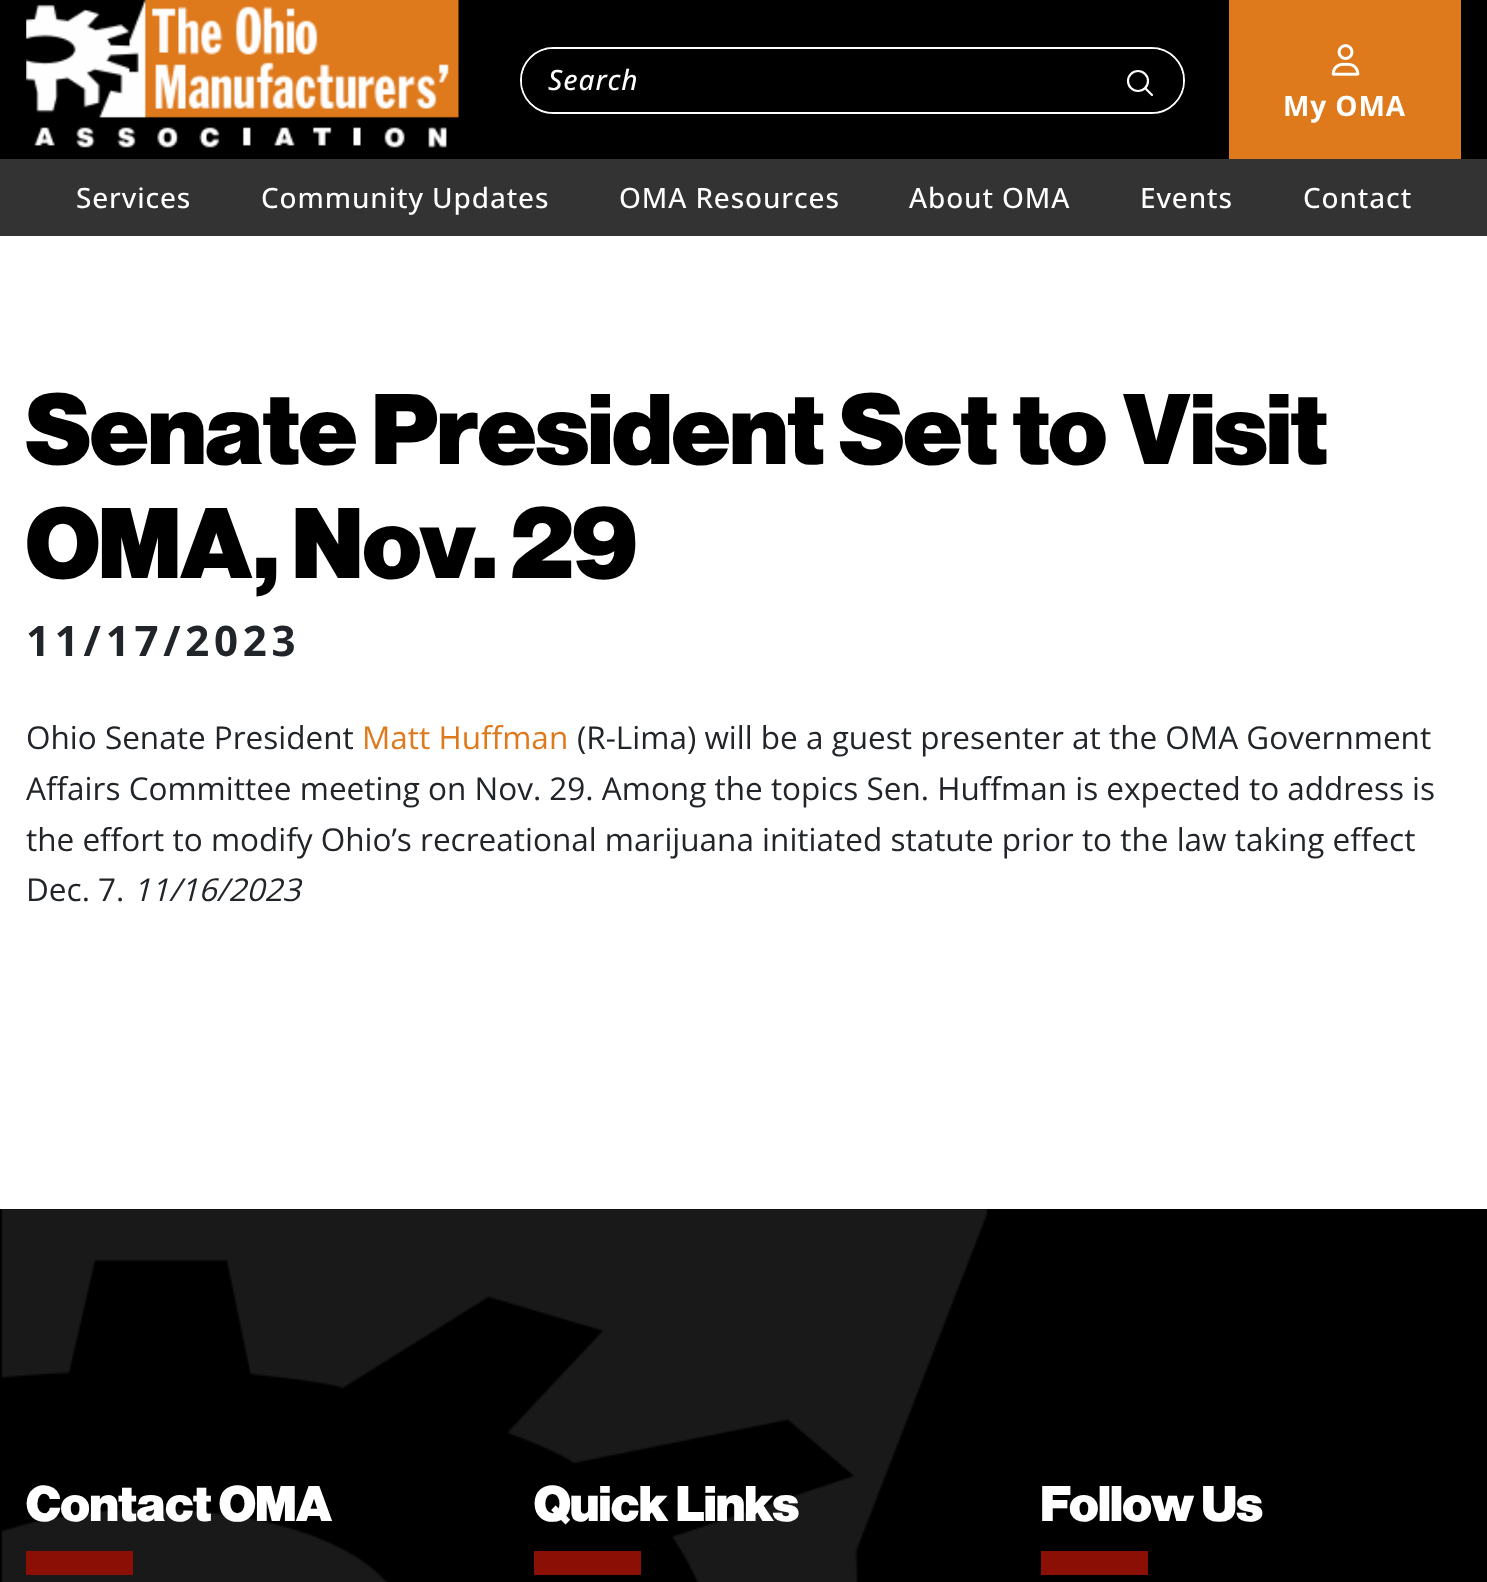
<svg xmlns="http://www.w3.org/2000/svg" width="1487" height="1582">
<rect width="100%" height="100%" fill="#fff"/>
<rect width="1487" height="159" fill="#000"/>
<image x="26" y="0" width="433" height="148" href="media/1.png"/>
<rect x="521" y="48" width="663" height="65" rx="32.5" fill="none" stroke="#fff" stroke-width="2"/>
<path d="M553.5 49h542.5v63h-542.5c-17.5 0-31.5-14-31.5-31.5c0-17.5 14-31.5 31.5-31.5z" fill="#000"/>
<text x="548" y="90" style="font-family:Open Sans;font-size:28px;font-weight:500;font-style:italic;letter-spacing:0.9px;fill:#fff">Search</text>
<path d="M1096 49h55.5c17.5 0 31.5 14 31.5 31.5c0 17.5-14 31.5-31.5 31.5h-55.5z" fill="#000"/>
<circle cx="1138" cy="81" r="10" fill="none" stroke="#fff" stroke-width="2.2"/>
<path d="M1145.5 88.5l6.5 6.5" fill="none" stroke="#fff" stroke-width="2.2" stroke-linecap="round"/>
<rect x="1229" width="232" height="159" fill="#de791c"/>
<image x="1331" y="44" width="29" height="32" href="media/2.png"/>
<text x="1283" y="116" style="font-family:Open Sans;font-size:28px;font-weight:bold;letter-spacing:0.9px;fill:#fff">My OMA</text>
<rect y="159" width="1487" height="77" fill="#333"/>
<text x="76" y="208" style="font-family:Open Sans;font-size:28px;font-weight:500;letter-spacing:0.9px;fill:#fff">Services</text>
<text x="261" y="208" style="font-family:Open Sans;font-size:28px;font-weight:500;letter-spacing:0.9px;fill:#fff">Community Updates</text>
<text x="619" y="208" style="font-family:Open Sans;font-size:28px;font-weight:500;letter-spacing:0.9px;fill:#fff">OMA Resources</text>
<text x="909" y="208" style="font-family:Open Sans;font-size:28px;font-weight:500;letter-spacing:0.9px;fill:#fff">About OMA</text>
<text x="1140" y="208" style="font-family:Open Sans;font-size:28px;font-weight:500;letter-spacing:0.9px;fill:#fff">Events</text>
<text x="1303" y="208" style="font-family:Open Sans;font-size:28px;font-weight:500;letter-spacing:0.9px;fill:#fff">Contact</text>
<text x="26" y="464" style="font-family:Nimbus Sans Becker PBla;font-size:105px;fill:#000">Senate President Set to Visit</text>
<text x="26" y="578" style="font-family:Nimbus Sans Becker PBla;font-size:105px;fill:#000">OMA, Nov. 29</text>
<text x="26" y="656" style="font-family:Open Sans;font-size:42px;font-weight:bold;letter-spacing:4.75px;fill:#212529">11/17/2023</text>
<text x="26" y="749" style="font-family:Open Sans;font-size:31.5px;fill:#212529">Ohio Senate President</text>
<text x="362" y="749" style="font-family:Open Sans;font-size:31.5px;fill:#de791c">Matt Huffman</text>
<text x="577" y="749" style="font-family:Open Sans;font-size:31.5px;fill:#212529">(R-Lima) will be a guest presenter at the OMA Government</text>
<text x="26" y="800" style="font-family:Open Sans;font-size:31.5px;fill:#212529">Affairs Committee meeting on Nov. 29. Among the topics Sen. Huffman is expected to address is</text>
<text x="26" y="851" style="font-family:Open Sans;font-size:31.5px;fill:#212529">the effort to modify Ohio’s recreational marijuana initiated statute prior to the law taking effect</text>
<text x="26" y="901" style="font-family:Open Sans;font-size:31.5px;fill:#212529">Dec. 7.</text>
<text x="133" y="901" style="font-family:Open Sans;font-size:31.5px;font-style:italic;fill:#212529">11/16/2023</text>
<rect y="1209" width="1487" height="373" fill="#000"/>
<image x="1" y="1209" width="986" height="373" href="media/3.png"/>
<text x="26" y="1521" style="font-family:Nimbus Sans Becker PBla;font-size:52.5px;fill:#fff">Contact OMA</text>
<rect x="26" y="1551" width="107" height="24" fill="#8b0f04"/>
<text x="534" y="1521" style="font-family:Nimbus Sans Becker PBla;font-size:52.5px;fill:#fff">Quick Links</text>
<rect x="534" y="1551" width="107" height="24" fill="#8b0f04"/>
<text x="1041" y="1521" style="font-family:Nimbus Sans Becker PBla;font-size:52.5px;fill:#fff">Follow Us</text>
<rect x="1041" y="1551" width="107" height="24" fill="#8b0f04"/>
</svg>
